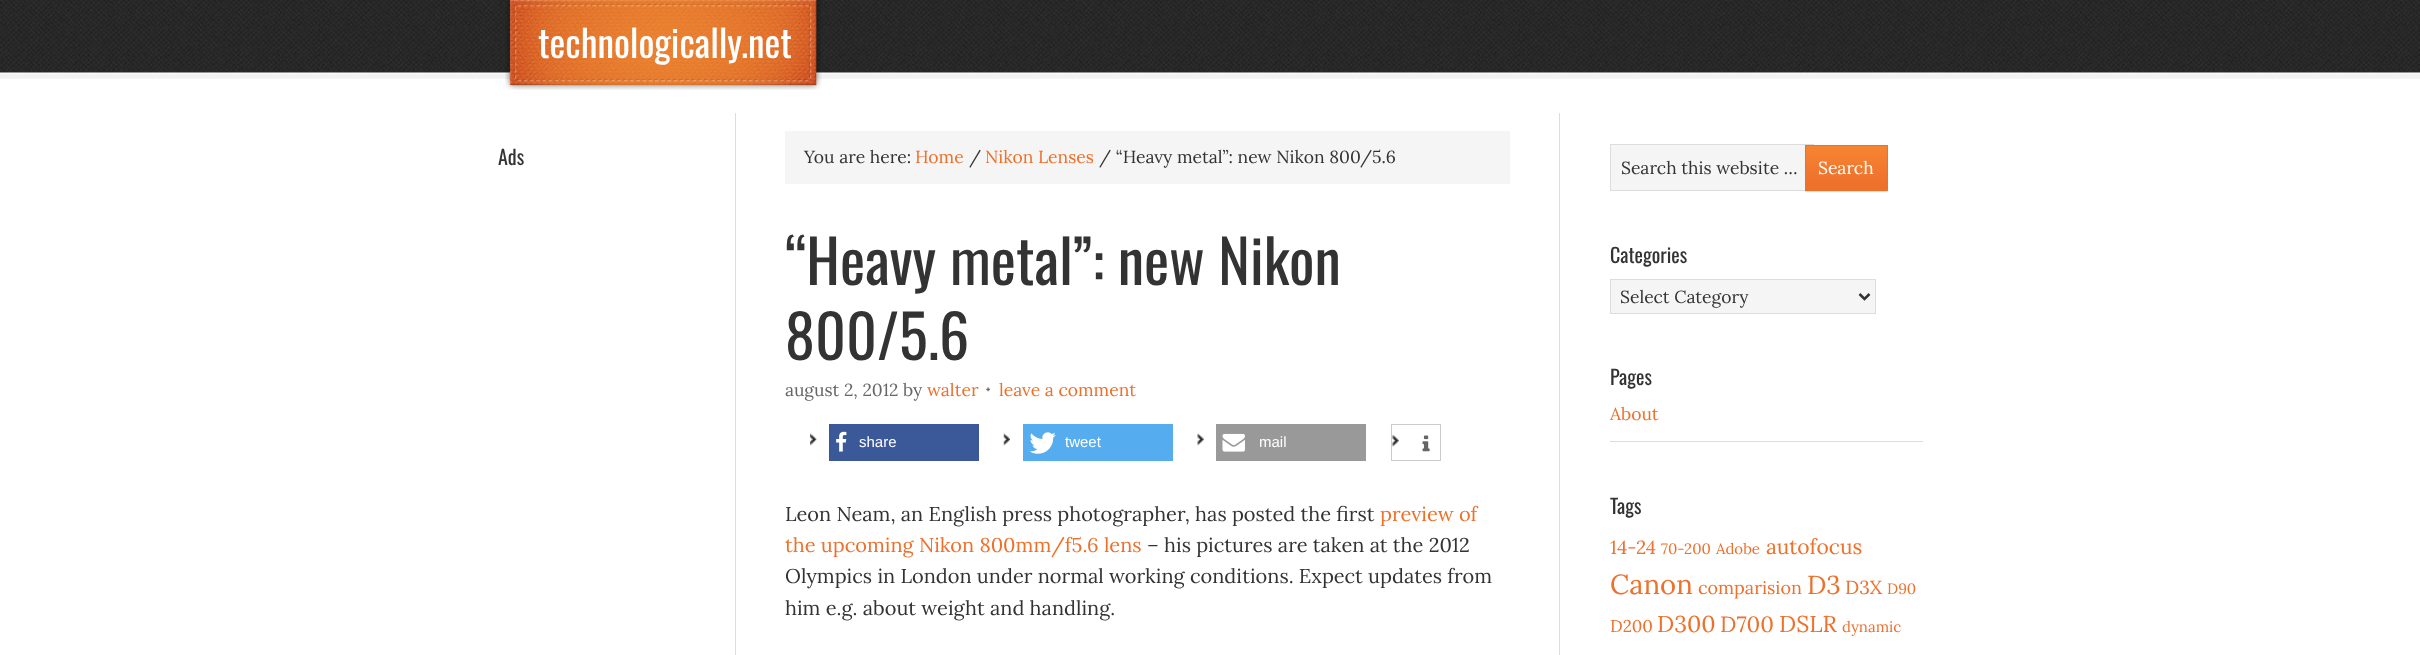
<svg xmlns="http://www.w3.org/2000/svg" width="2420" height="655">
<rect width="100%" height="100%" fill="#fff"/>
<image x="0" y="0" width="2420" height="79" href="media/1.png"/>
<image x="505" y="0" width="317" height="90" href="media/2.png"/>
<text x="538" y="58" style="font-family:Oswald;font-size:37.5px;fill:#fff">technologically.net</text>
<text x="498" y="165" style="font-family:Oswald;font-size:20px;fill:#333">Ads</text>
<rect x="1559" y="113" width="1" height="542" fill="#ddd"/>
<rect x="735" y="113" width="1" height="542" fill="#ddd"/>
<rect x="785" y="131" width="725" height="53" fill="#f5f5f5"/>
<text x="804" y="163" style="font-family:Lora;font-size:17.5px;fill:#333">You are here:</text>
<text x="915" y="163" style="font-family:Lora;font-size:17.5px;fill:#ed702b">Home</text>
<text x="969" y="163" style="font-family:Lora;font-size:17.5px;fill:#333">/</text>
<text x="985" y="163" style="font-family:Lora;font-size:17.5px;fill:#ed702b">Nikon Lenses</text>
<text x="1099" y="163" style="font-family:Lora;font-size:17.5px;fill:#333">/ “Heavy metal”: new Nikon 800/5.6</text>
<text x="785" y="285" style="font-family:Oswald;font-size:60px;fill:#333">“Heavy metal”: new Nikon</text>
<text x="785" y="360" style="font-family:Oswald;font-size:60px;fill:#333">800/5.6</text>
<text x="785" y="396" style="font-family:Lora;font-size:17.5px;fill:#666">august 2, 2012 by</text>
<text x="927" y="396" style="font-family:Lora;font-size:17.5px;fill:#ed702b">walter</text>
<image x="986" y="387" width="4" height="5" href="media/3.png"/>
<text x="999" y="396" style="font-family:Lora;font-size:17.5px;fill:#ed702b">leave a comment</text>
<image x="810" y="433" width="7" height="13" href="media/4.png"/>
<rect x="829" y="424" width="150" height="37" fill="#3b5998"/>
<image x="836" y="431" width="11" height="21" href="media/5.png"/>
<text x="859" y="447" style="font-family:Liberation Sans;font-size:15px;fill:#fff">share</text>
<image x="1003" y="433" width="7" height="13" href="media/6.png"/>
<rect x="1023" y="424" width="150" height="37" fill="#55acee"/>
<image x="1029" y="432" width="27" height="22" href="media/7.png"/>
<text x="1065" y="447" style="font-family:Liberation Sans;font-size:15px;fill:#fff">tweet</text>
<image x="1197" y="433" width="7" height="13" href="media/8.png"/>
<rect x="1216" y="424" width="150" height="37" fill="#999"/>
<image x="1222" y="433" width="23" height="19" href="media/9.png"/>
<text x="1259" y="447" style="font-family:Liberation Sans;font-size:15px;fill:#fff">mail</text>
<image x="1392" y="434" width="7" height="13" href="media/10.png"/>
<rect x="1391.5" y="424.5" width="49" height="36" fill="none" stroke="#ccc"/>
<image x="1422" y="435" width="8" height="17" href="media/11.png"/>
<text x="785" y="521" style="font-family:Lora;font-size:20px;fill:#333">Leon Neam, an English press photographer, has posted the first</text>
<text x="1380" y="521" style="font-family:Lora;font-size:20px;fill:#ed702b">preview of</text>
<text x="785" y="552" style="font-family:Lora;font-size:20px;fill:#ed702b">the upcoming Nikon 800mm/f5.6 lens</text>
<text x="1147" y="552" style="font-family:Lora;font-size:20px;fill:#333">– his pictures are taken at the 2012</text>
<text x="785" y="583" style="font-family:Lora;font-size:20px;fill:#333">Olympics in London under normal working conditions. Expect updates from</text>
<text x="785" y="615" style="font-family:Lora;font-size:20px;fill:#333">him e.g. about weight and handling.</text>
<rect x="1611" y="145" width="194" height="45" fill="#f5f5f5"/>
<rect x="1610.5" y="144.5" width="203" height="46" fill="none" stroke="#ddd"/>
<text x="1621" y="174" style="font-family:Lora;font-size:17.5px;fill:#333">Search this website …</text>
<image x="1805" y="146" width="83" height="46" href="media/12.png"/>
<rect x="1805.5" y="145.5" width="82" height="45" fill="none" stroke="#ed702b"/>
<text x="1818" y="174" style="font-family:Lora;font-size:17.5px;fill:#fff">Search</text>
<text x="1610" y="263" style="font-family:Oswald;font-size:20px;fill:#333">Categories</text>
<rect x="1610.5" y="279.5" width="265" height="34" fill="#f5f5f5" stroke="#ddd"/>
<path d="M1859.5 294l5 5l5-5" fill="none" stroke="#333" stroke-width="2.5"/>
<text x="1620" y="303" style="font-family:Lora;font-size:17.5px;fill:#333">Select Category</text>
<text x="1610" y="385" style="font-family:Oswald;font-size:20px;fill:#333">Pages</text>
<rect x="1610" y="441" width="313" height="1" fill="#ddd"/>
<text x="1610" y="420" style="font-family:Lora;font-size:17.5px;fill:#ed702b">About</text>
<text x="1610" y="514" style="font-family:Oswald;font-size:20px;fill:#333">Tags</text>
<text x="1610" y="554" style="font-family:Lora;font-size:19px;fill:#ed702b">14-24</text>
<text x="1661" y="554" style="font-family:Lora;font-size:15px;fill:#ed702b">70-200</text>
<text x="1716" y="554" style="font-family:Lora;font-size:15px;fill:#ed702b">Adobe</text>
<text x="1766" y="554" style="font-family:Lora;font-size:21px;fill:#ed702b">autofocus</text>
<text x="1610" y="594" style="font-family:Lora;font-size:27.5px;fill:#ed702b">Canon</text>
<text x="1698" y="594" style="font-family:Lora;font-size:18px;fill:#ed702b">comparision</text>
<text x="1807" y="594" style="font-family:Lora;font-size:26px;fill:#ed702b">D3</text>
<text x="1845" y="594" style="font-family:Lora;font-size:19px;fill:#ed702b">D3X</text>
<text x="1887" y="594" style="font-family:Lora;font-size:15px;fill:#ed702b">D90</text>
<text x="1610" y="632" style="font-family:Lora;font-size:17px;fill:#ed702b">D200</text>
<text x="1657" y="632" style="font-family:Lora;font-size:23px;fill:#ed702b">D300</text>
<text x="1720" y="632" style="font-family:Lora;font-size:22px;fill:#ed702b">D700</text>
<text x="1779" y="632" style="font-family:Lora;font-size:23px;fill:#ed702b">DSLR</text>
<text x="1842" y="632" style="font-family:Lora;font-size:15px;fill:#ed702b">dynamic</text>
</svg>
